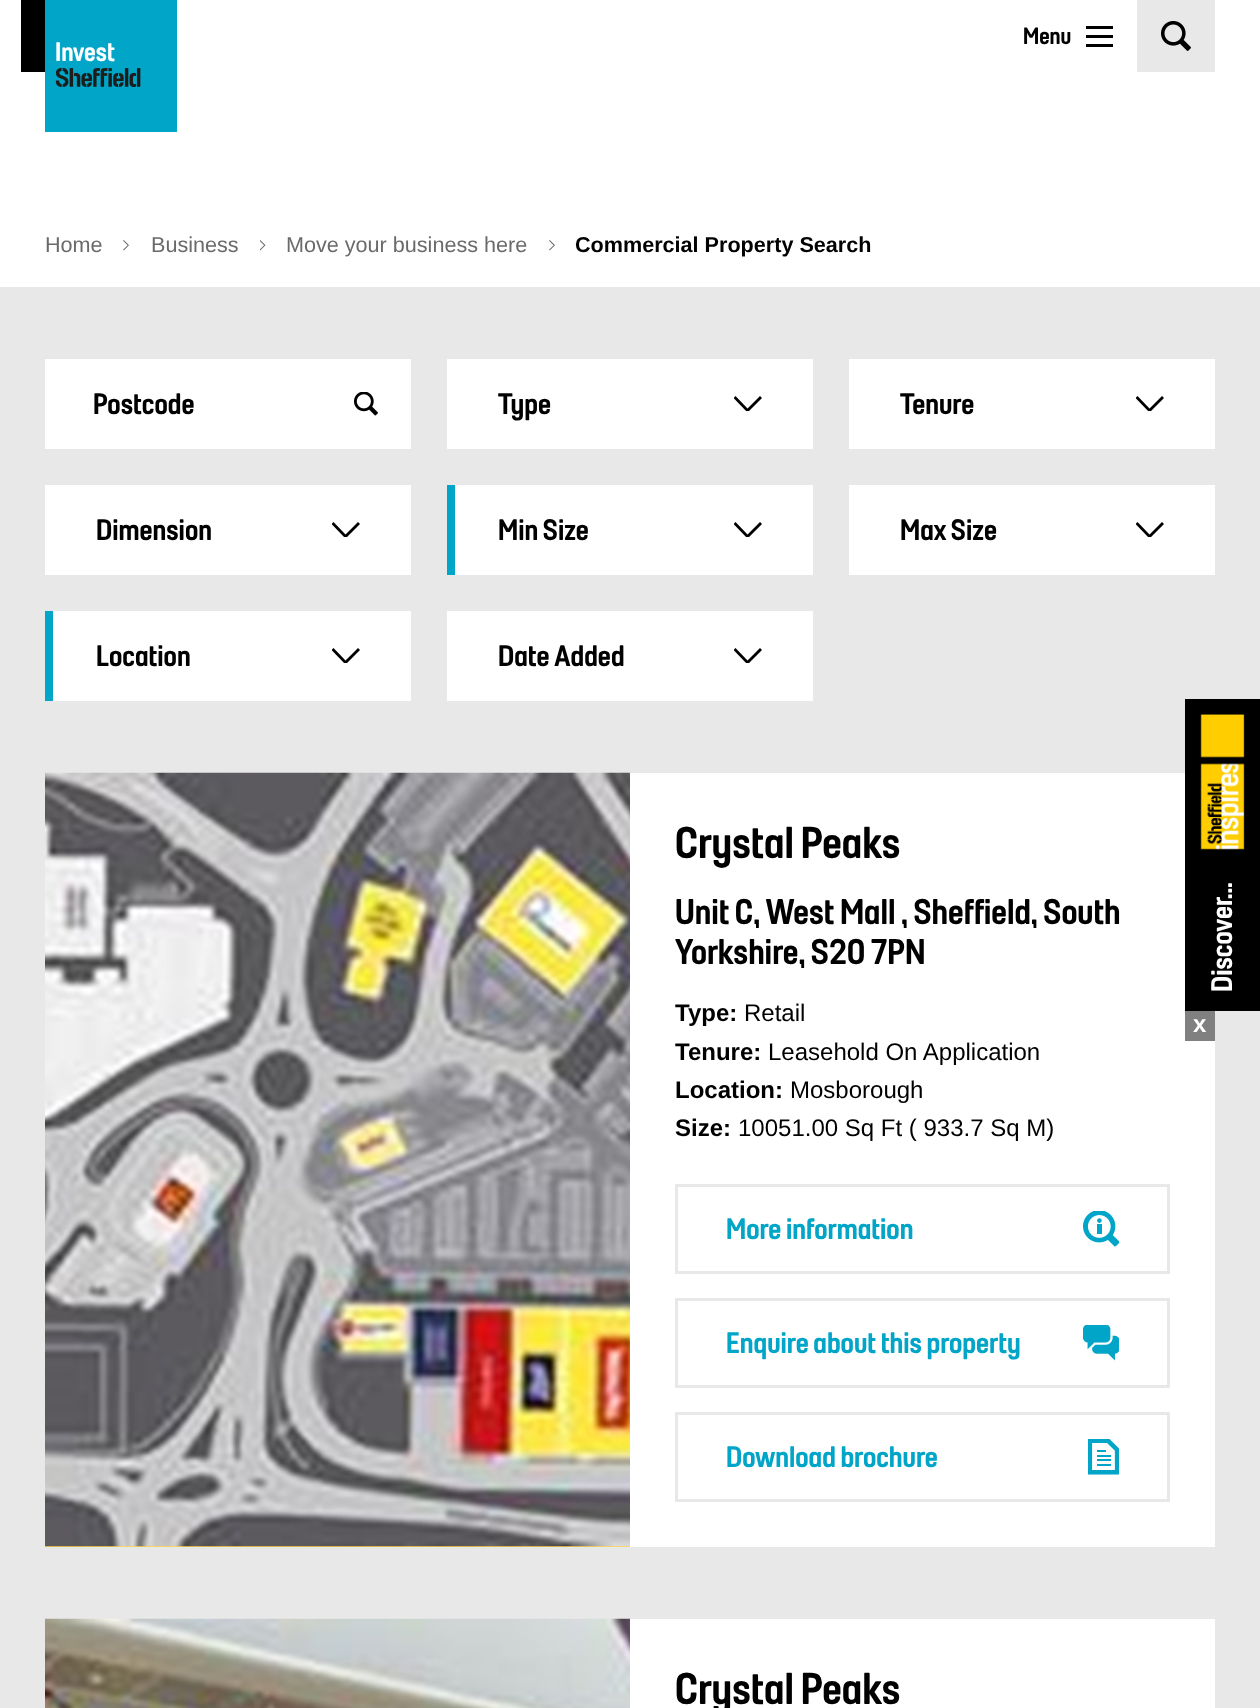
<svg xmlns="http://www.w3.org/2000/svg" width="1260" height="1708">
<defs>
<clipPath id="clip1"><rect x="734" y="396" width="28" height="15"/></clipPath>
<clipPath id="clip2"><rect x="1136" y="396" width="28" height="15"/></clipPath>
<clipPath id="clip3"><rect x="332" y="522" width="28" height="15"/></clipPath>
<clipPath id="clip4"><rect x="734" y="522" width="28" height="15"/></clipPath>
<clipPath id="clip5"><rect x="1136" y="522" width="28" height="15"/></clipPath>
<clipPath id="clip6"><rect x="332" y="648" width="28" height="15"/></clipPath>
<clipPath id="clip7"><rect x="734" y="648" width="28" height="15"/></clipPath>
</defs>
<rect width="100%" height="100%" fill="#fff"/>
<rect x="21" width="24" height="72" fill="#000"/>
<text x="1023" y="44" style="font-family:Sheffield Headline;font-size:24px;fill:#000">Menu</text>
<rect x="1086" y="35" width="27" height="3" fill="#000"/>
<rect x="1086" y="26" width="27" height="3" fill="#000"/>
<rect x="1086" y="44" width="27" height="3" fill="#000"/>
<rect x="1137" width="78" height="72" fill="#e8e8e8"/>
<image x="1161" y="21" width="30" height="30" href="media/1.png"/>
<image x="45" y="0" width="132" height="132" href="media/2.png"/>
<text x="55" y="61" style="font-family:Sheffield Headline;font-size:27px;fill:#fff">In</text>
<text x="73" y="61" style="font-family:Sheffield Headline;font-size:27px;fill:#fff">v</text>
<text x="84" y="61" style="font-family:Sheffield Headline;font-size:27px;fill:#fff">est</text>
<text x="45" y="252" style="font-family:Liberation Sans;font-size:21.6px;fill:#6a6a6a">Home</text>
<image x="123" y="240" width="6" height="11" href="media/3.png"/>
<text x="151" y="252" style="font-family:Liberation Sans;font-size:21.6px;fill:#6a6a6a">Business</text>
<image x="260" y="240" width="6" height="11" href="media/4.png"/>
<text x="286" y="252" style="font-family:Liberation Sans;font-size:21.6px;fill:#6a6a6a">Move your business here</text>
<image x="549" y="240" width="6" height="11" href="media/3.png"/>
<text x="575" y="252" style="font-family:Liberation Sans;font-size:21.6px;font-weight:bold;fill:#000">Commercial Property Search</text>
<rect y="287" width="1260" height="1421" fill="#e8e8e8"/>
<rect x="45" y="359" width="366" height="90" fill="#fff"/>
<text x="93" y="414" style="font-family:Sheffield Headline;font-size:30px;fill:#000">Postcode</text>
<image x="354" y="392" width="24" height="24" href="media/5.png"/>
<rect x="447" y="359" width="366" height="90" fill="#fff"/>
<text x="498" y="414" style="font-family:Sheffield Headline;font-size:30px;fill:#000">Type</text>
<g clip-path="url(#clip1)">
<path d="M733.5 398l2-2l12 12.5l12.5-12.5l2 2l-14.5 14.5l-14-14.5" fill="#000" fill-rule="evenodd"/>
</g>
<rect x="849" y="359" width="366" height="90" fill="#fff"/>
<text x="900" y="414" style="font-family:Sheffield Headline;font-size:30px;fill:#000">Tenure</text>
<g clip-path="url(#clip2)">
<path d="M1135.5 398l2-2l12 12.5l12.5-12.5l2 2l-14.5 14.5l-14-14.5" fill="#000" fill-rule="evenodd"/>
</g>
<rect x="45" y="485" width="366" height="90" fill="#fff"/>
<text x="96" y="540" style="font-family:Sheffield Headline;font-size:30px;fill:#000">Dimension</text>
<g clip-path="url(#clip3)">
<path d="M331.5 524l2-2l12 12.5l12.5-12.5l2 2l-14.5 14.5l-14-14.5" fill="#000" fill-rule="evenodd"/>
</g>
<rect x="447" y="485" width="8" height="90" fill="#00a5c8"/>
<rect x="455" y="485" width="358" height="90" fill="#fff"/>
<text x="498" y="540" style="font-family:Sheffield Headline;font-size:30px;fill:#000">Min Size</text>
<g clip-path="url(#clip4)">
<path d="M733.5 524l2-2l12 12.5l12.5-12.5l2 2l-14.5 14.5l-14-14.5" fill="#000" fill-rule="evenodd"/>
</g>
<rect x="849" y="485" width="366" height="90" fill="#fff"/>
<text x="900" y="540" style="font-family:Sheffield Headline;font-size:30px;fill:#000">Max Size</text>
<g clip-path="url(#clip5)">
<path d="M1135.5 524l2-2l12 12.5l12.5-12.5l2 2l-14.5 14.5l-14-14.5" fill="#000" fill-rule="evenodd"/>
</g>
<rect x="45" y="611" width="8" height="90" fill="#00a5c8"/>
<rect x="53" y="611" width="358" height="90" fill="#fff"/>
<text x="96" y="666" style="font-family:Sheffield Headline;font-size:30px;fill:#000">Location</text>
<g clip-path="url(#clip6)">
<path d="M331.5 650l2-2l12 12.5l12.5-12.5l2 2l-14.5 14.5l-14-14.5" fill="#000" fill-rule="evenodd"/>
</g>
<rect x="447" y="611" width="366" height="90" fill="#fff"/>
<text x="498" y="666" style="font-family:Sheffield Headline;font-size:30px;fill:#000">Date Added</text>
<g clip-path="url(#clip7)">
<path d="M733.5 650l2-2l12 12.5l12.5-12.5l2 2l-14.5 14.5l-14-14.5" fill="#000" fill-rule="evenodd"/>
</g>
<rect x="45" y="1546" width="585" height="1" fill="#ffd744"/>
<image x="45" y="772" width="585" height="775" href="media/6.png"/>
<rect x="630" y="773" width="585" height="774" fill="#fff"/>
<text x="675" y="858" style="font-family:Sheffield Headline;font-size:45px;fill:#000">Crystal Peaks</text>
<text x="675" y="924" style="font-family:Sheffield Headline;font-size:36px;fill:#000">Unit C, West Mall , Sheffield, South</text>
<text x="675" y="964" style="font-family:Sheffield Headline;font-size:36px;fill:#000">Yorkshire, S20 7PN</text>
<text x="675" y="1021" style="font-family:Liberation Sans;font-size:24px;font-weight:bold;fill:#000">Type:</text>
<text x="744" y="1021" style="font-family:Liberation Sans;font-size:24px;fill:#000">Retail</text>
<text x="675" y="1060" style="font-family:Liberation Sans;font-size:24px;font-weight:bold;fill:#000">Tenure:</text>
<text x="768" y="1060" style="font-family:Liberation Sans;font-size:24px;fill:#000">Leasehold On Application</text>
<text x="675" y="1098" style="font-family:Liberation Sans;font-size:24px;font-weight:bold;fill:#000">Location:</text>
<text x="790" y="1098" style="font-family:Liberation Sans;font-size:24px;fill:#000">Mosborough</text>
<text x="675" y="1136" style="font-family:Liberation Sans;font-size:24px;font-weight:bold;fill:#000">Size:</text>
<text x="738" y="1136" style="font-family:Liberation Sans;font-size:24px;fill:#000">10051.00 Sq Ft ( 933.7 Sq M)</text>
<rect x="676.5" y="1185.5" width="492" height="87" fill="none" stroke="#e8e8e8" stroke-width="3"/>
<text x="726" y="1239" style="font-family:Sheffield Headline;font-size:30px;fill:#00a5c8">More information</text>
<image x="1083" y="1211" width="36" height="36" href="media/7.png"/>
<rect x="676.5" y="1299.5" width="492" height="87" fill="none" stroke="#e8e8e8" stroke-width="3"/>
<text x="726" y="1353" style="font-family:Sheffield Headline;font-size:30px;fill:#00a5c8">Enquire about this property</text>
<image x="1083" y="1325" width="36" height="36" href="media/8.png"/>
<rect x="676.5" y="1413.5" width="492" height="87" fill="none" stroke="#e8e8e8" stroke-width="3"/>
<text x="726" y="1467" style="font-family:Sheffield Headline;font-size:30px;fill:#00a5c8">Download brochure</text>
<image x="1088" y="1439" width="31" height="36" href="media/9.png"/>
<image x="45" y="1618" width="585" height="90" href="media/10.png"/>
<rect x="630" y="1619" width="585" height="89" fill="#fff"/>
<text x="675" y="1704" style="font-family:Sheffield Headline;font-size:45px;fill:#000">Crystal Peaks</text>
<rect x="1185" y="699" width="75" height="312" fill="#000"/>
<image x="1200" y="714" width="45" height="136" href="media/11.png"/>
<text x="1232" y="992" transform="rotate(-90 1232 992)" style="font-family:Sheffield Headline;font-size:30px;fill:#fff">Discover...</text>
<rect x="1185" y="1011" width="30" height="30" fill="#808080"/>
<text x="1193" y="1032" style="font-family:Liberation Sans;font-size:24px;font-weight:bold;fill:#fff">x</text>
</svg>
